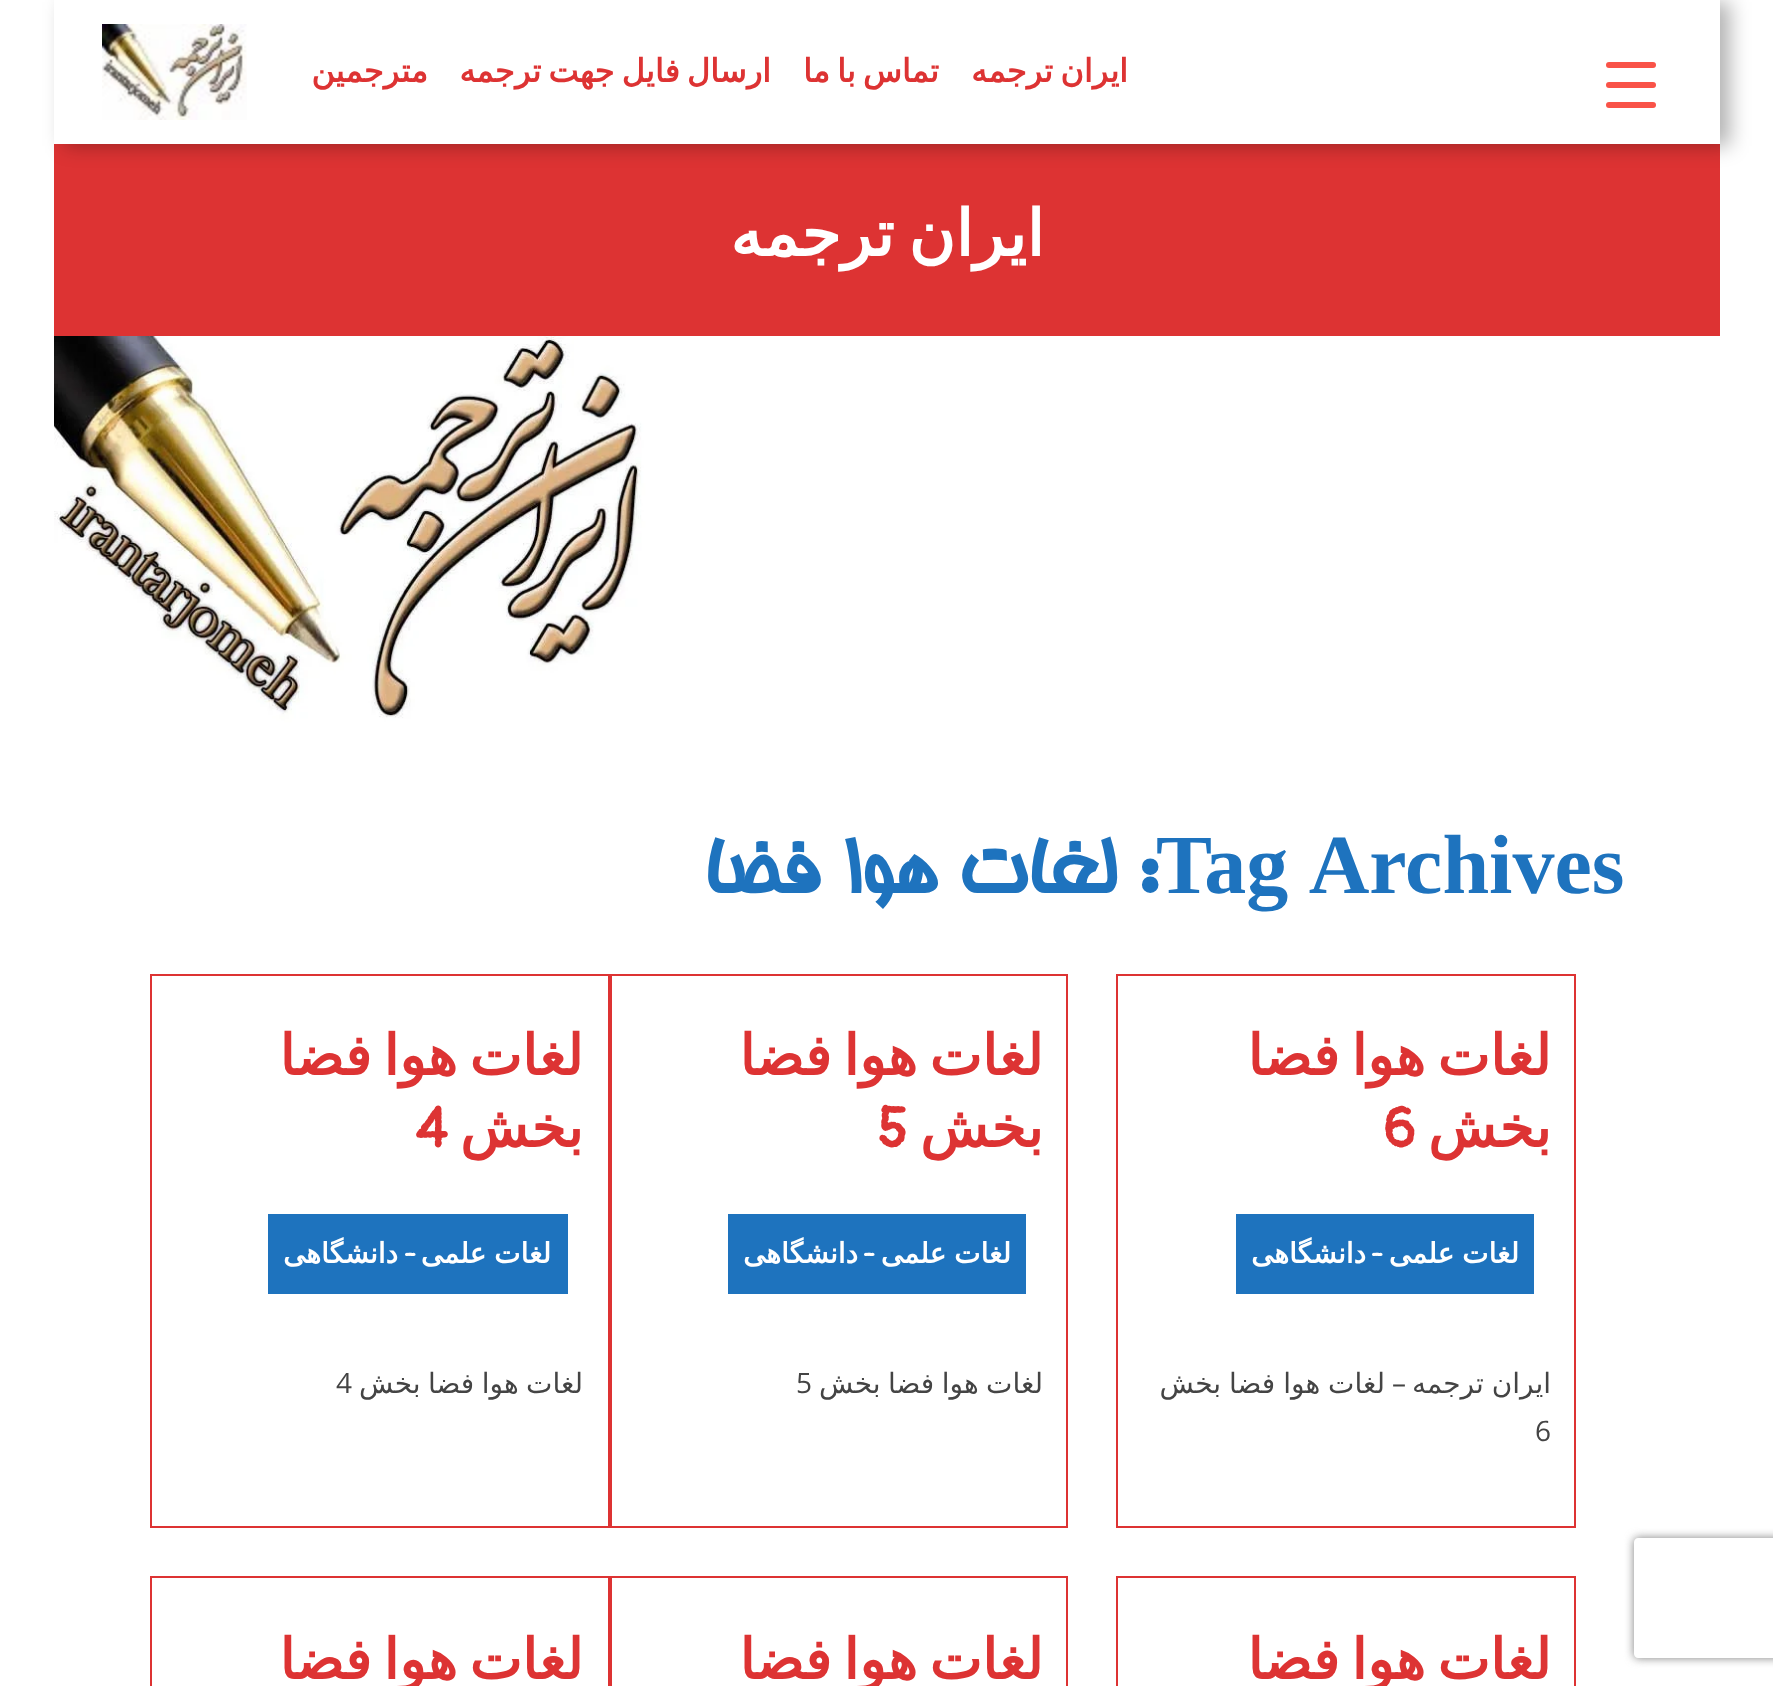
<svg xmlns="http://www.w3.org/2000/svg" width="1773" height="1686">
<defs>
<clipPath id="clip1"><path d="M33 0h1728v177h-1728zm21 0h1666v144h-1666z" clip-rule="evenodd"/></clipPath>
<clipPath id="clip2"><path d="M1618 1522h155v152h-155zm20 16h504c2 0 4 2 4 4v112c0 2-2 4-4 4h-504c-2 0-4-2-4-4v-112c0-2 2-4 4-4z" clip-rule="evenodd"/></clipPath>
</defs>
<rect width="100%" height="100%" fill="#fff"/>
<rect x="54" y="144" width="1666" height="192" fill="#d33"/>
<g clip-path="url(#clip1)">
<rect x="64" y="2" width="1666" height="144" fill="#0000004d" filter="blur(10px)"/>
</g>
<rect x="1606" y="82" width="50" height="6" rx="3" fill="#f95348"/>
<rect x="1606" y="62" width="50" height="6" rx="3" fill="#f95348"/>
<rect x="1606" y="102" width="50" height="6" rx="3" fill="#f95348"/>
<text x="1128" y="82" word-spacing="-3" style="font-family:DejaVu Sans;font-size:32px;font-weight:bold;direction:rtl;fill:#d33">ایران ترجمه</text>
<text x="939" y="82" word-spacing="-3" style="font-family:DejaVu Sans;font-size:32px;font-weight:bold;direction:rtl;fill:#d33">تماس با ما</text>
<text x="771" y="82" word-spacing="-3" style="font-family:DejaVu Sans;font-size:32px;font-weight:bold;direction:rtl;fill:#d33">ارسال فایل جهت ترجمه</text>
<text x="428" y="82" style="font-family:DejaVu Sans;font-size:32px;font-weight:bold;direction:rtl;fill:#d33">مترجمین</text>
<image x="102" y="24" width="145" height="96" href="media/1.png"/>
<text x="1044" y="256" word-spacing="-6" style="font-family:DejaVu Sans;font-size:64px;font-weight:bold;direction:rtl;fill:#fff">ایران ترجمه</text>
<image x="54" y="336" width="1666" height="398" href="media/2.png"/>
<text x="1156" y="893" word-spacing="4" style="font-family:Liberation Serif;font-size:84px;font-weight:bold;fill:#1e73be">Tag Archives</text>
<text x="1156" y="893" style="font-family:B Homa;font-size:84px;font-weight:bold;direction:rtl;fill:#1e73be">: لغات هوا فضا</text>
<rect x="1117" y="975" width="458" height="552" fill="none" stroke="#d33" stroke-width="2"/>
<text x="1551" y="1075" word-spacing="-6" style="font-family:DejaVu Sans;font-size:56px;font-weight:bold;direction:rtl;fill:#d33">لغات هوا فضا</text>
<text x="1551" y="1147" style="font-family:DejaVu Sans;font-size:56px;font-weight:bold;direction:rtl;fill:#d33">بخش</text>
<text x="1383" y="1147" style="font-family:Pangolin;font-size:56px;font-weight:bold;fill:#d33">6</text>
<rect x="1236" y="1214" width="298" height="80" fill="#1e73be"/>
<text x="1519" y="1263" word-spacing="-1" style="font-family:DejaVu Sans;font-size:28px;font-weight:bold;direction:rtl;fill:#fff">لغات علمی</text>
<text x="1383" y="1263" style="font-family:Pangolin;font-size:28px;font-weight:bold;direction:rtl;fill:#fff">-</text>
<text x="1366" y="1263" style="font-family:DejaVu Sans;font-size:28px;font-weight:bold;direction:rtl;fill:#fff">دانشگاهی</text>
<text x="1551" y="1393" word-spacing="-1" style="font-family:DejaVu Sans;font-size:28px;direction:rtl;fill:#444">ایران ترجمه</text>
<text x="1406" y="1393" style="font-family:Open Sans;font-size:28px;direction:rtl;fill:#444">–</text>
<text x="1385" y="1393" word-spacing="-1" style="font-family:DejaVu Sans;font-size:28px;direction:rtl;fill:#444">لغات هوا فضا بخش</text>
<text x="1535" y="1441" style="font-family:Open Sans;font-size:28px;fill:#444">6</text>
<rect x="611" y="975" width="456" height="552" fill="none" stroke="#d33" stroke-width="2"/>
<text x="1043" y="1075" word-spacing="-6" style="font-family:DejaVu Sans;font-size:56px;font-weight:bold;direction:rtl;fill:#d33">لغات هوا فضا</text>
<text x="1043" y="1147" style="font-family:DejaVu Sans;font-size:56px;font-weight:bold;direction:rtl;fill:#d33">بخش</text>
<text x="877" y="1147" style="font-family:Pangolin;font-size:56px;font-weight:bold;fill:#d33">5</text>
<rect x="728" y="1214" width="298" height="80" fill="#1e73be"/>
<text x="1011" y="1263" word-spacing="-1" style="font-family:DejaVu Sans;font-size:28px;font-weight:bold;direction:rtl;fill:#fff">لغات علمی</text>
<text x="875" y="1263" style="font-family:Pangolin;font-size:28px;font-weight:bold;direction:rtl;fill:#fff">-</text>
<text x="858" y="1263" style="font-family:DejaVu Sans;font-size:28px;font-weight:bold;direction:rtl;fill:#fff">دانشگاهی</text>
<text x="1043" y="1393" word-spacing="-1.5" style="font-family:DejaVu Sans;font-size:28px;direction:rtl;fill:#444">لغات هوا فضا بخش</text>
<text x="796" y="1393" style="font-family:Open Sans;font-size:28px;fill:#444">5</text>
<rect x="151" y="975" width="458" height="552" fill="none" stroke="#d33" stroke-width="2"/>
<text x="583" y="1075" word-spacing="-6" style="font-family:DejaVu Sans;font-size:56px;font-weight:bold;direction:rtl;fill:#d33">لغات هوا فضا</text>
<text x="583" y="1147" style="font-family:DejaVu Sans;font-size:56px;font-weight:bold;direction:rtl;fill:#d33">بخش</text>
<text x="415" y="1147" style="font-family:Pangolin;font-size:56px;font-weight:bold;fill:#d33">4</text>
<rect x="268" y="1214" width="300" height="80" fill="#1e73be"/>
<text x="551" y="1263" word-spacing="-1" style="font-family:DejaVu Sans;font-size:28px;font-weight:bold;direction:rtl;fill:#fff">لغات علمی</text>
<text x="416" y="1263" style="font-family:Pangolin;font-size:28px;font-weight:bold;direction:rtl;fill:#fff">-</text>
<text x="398" y="1263" style="font-family:DejaVu Sans;font-size:28px;font-weight:bold;direction:rtl;fill:#fff">دانشگاهی</text>
<text x="583" y="1393" word-spacing="-1.5" style="font-family:DejaVu Sans;font-size:28px;direction:rtl;fill:#444">لغات هوا فضا بخش</text>
<text x="336" y="1393" style="font-family:Open Sans;font-size:28px;fill:#444">4</text>
<rect x="1117" y="1577" width="458" height="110" fill="none" stroke="#d33" stroke-width="2"/>
<text x="1551" y="1679" word-spacing="-6" style="font-family:DejaVu Sans;font-size:56px;font-weight:bold;direction:rtl;fill:#d33">لغات هوا فضا</text>
<rect x="611" y="1577" width="456" height="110" fill="none" stroke="#d33" stroke-width="2"/>
<text x="1043" y="1679" word-spacing="-6" style="font-family:DejaVu Sans;font-size:56px;font-weight:bold;direction:rtl;fill:#d33">لغات هوا فضا</text>
<rect x="151" y="1577" width="458" height="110" fill="none" stroke="#d33" stroke-width="2"/>
<text x="583" y="1679" word-spacing="-6" style="font-family:DejaVu Sans;font-size:56px;font-weight:bold;direction:rtl;fill:#d33">لغات هوا فضا</text>
<g clip-path="url(#clip2)">
<rect x="1634" y="1538" width="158" height="120" rx="4" fill="#808080" filter="blur(5px)"/>
</g>
</svg>
